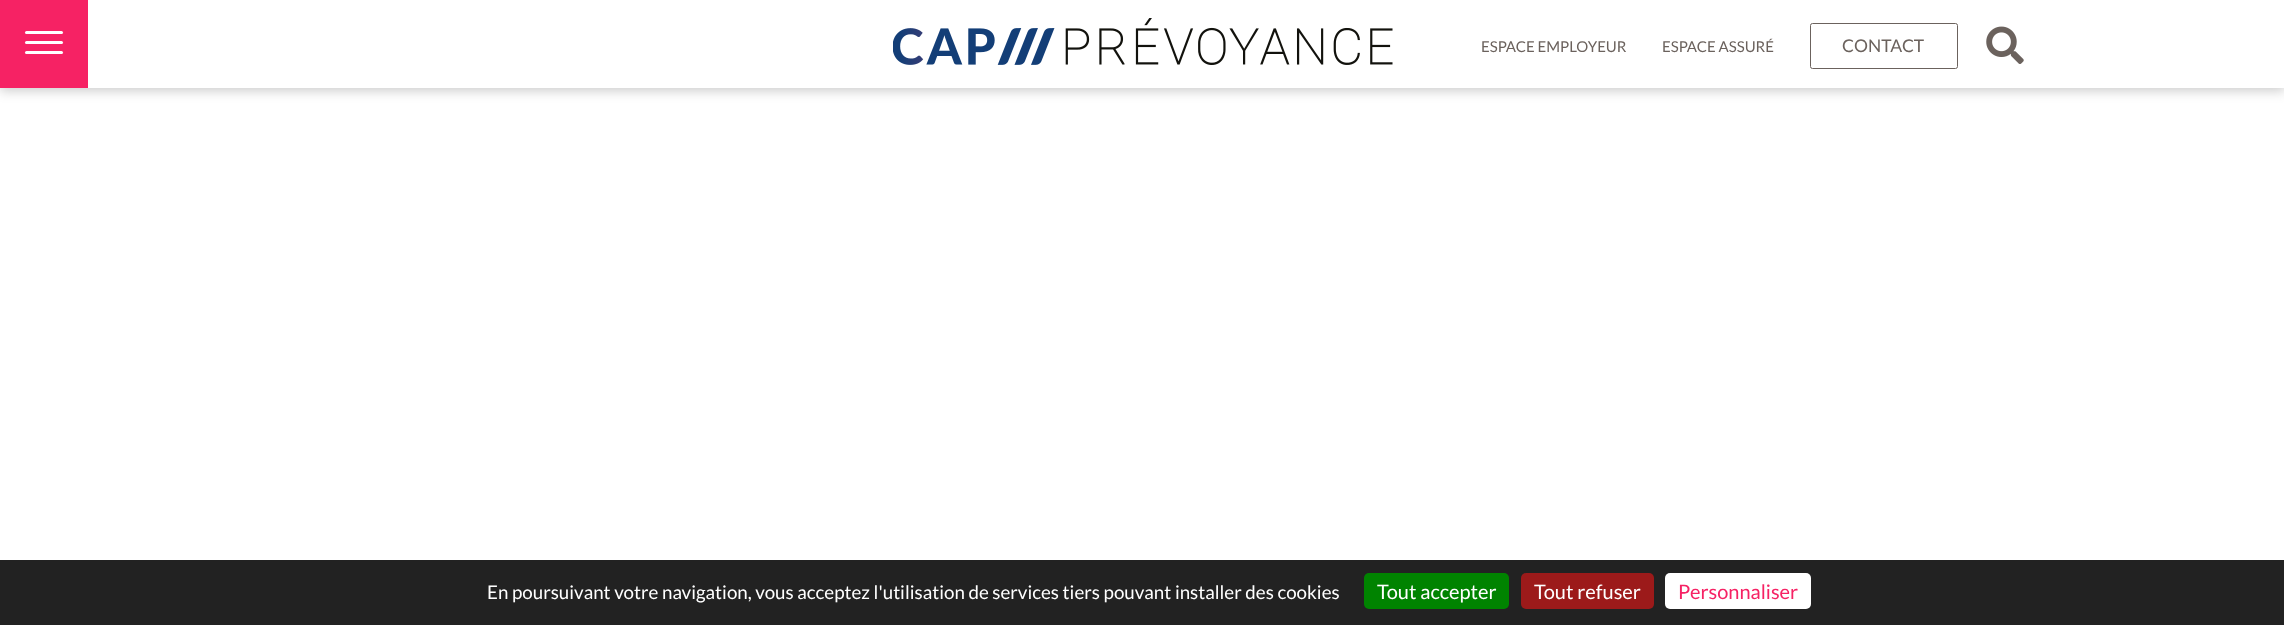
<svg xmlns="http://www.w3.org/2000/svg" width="2284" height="625">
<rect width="100%" height="100%" fill="#fff"/>
<rect y="4" width="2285" height="87" fill="#00000033" filter="blur(6px)"/>
<rect width="88" height="88" fill="#f62264"/>
<rect x="25" y="41" width="38" height="3" rx="1.5" fill="#fff"/>
<rect x="25" y="31" width="38" height="3" rx="1.5" fill="#fff"/>
<rect x="25" y="51" width="38" height="3" rx="1.5" fill="#fff"/>
<rect x="88" width="2196" height="88" fill="#fff"/>
<image x="893" y="18" width="500" height="47" href="media/1.png"/>
<text x="1481" y="52" style="font-family:Lato;font-size:15px;fill:#6b625d">ESPACE EMPLOYEUR</text>
<text x="1662" y="52" style="font-family:Lato;font-size:15px;fill:#6b625d">ESPACE ASSURÉ</text>
<rect x="1810.5" y="23.5" width="147" height="45" rx="2" fill="none" stroke="#6b625d"/>
<text x="1842" y="52" style="font-family:Lato;font-size:17.5px;fill:#6b625d">CONTACT</text>
<image x="1986" y="26" width="38" height="38" href="media/2.png"/>
<rect y="560" width="2284" height="65" fill="#222"/>
<text x="487" y="599" style="font-family:Lato;font-size:18.75px;fill:#fff">En poursuivant votre navigation, vous acceptez l'utilisation de services tiers pouvant installer des cookies</text>
<rect x="1364" y="573" width="145" height="36" rx="5" fill="#008300"/>
<text x="1377" y="599" style="font-family:Lato;font-size:20px;fill:#fff">Tout accepter</text>
<rect x="1521" y="573" width="133" height="36" rx="5" fill="#9c1a1a"/>
<text x="1534" y="599" style="font-family:Lato;font-size:20px;fill:#fff">Tout refuser</text>
<rect x="1665" y="573" width="146" height="36" rx="5" fill="#fff"/>
<text x="1678" y="599" style="font-family:Lato;font-size:20px;fill:#f62264">Personnaliser</text>
</svg>
